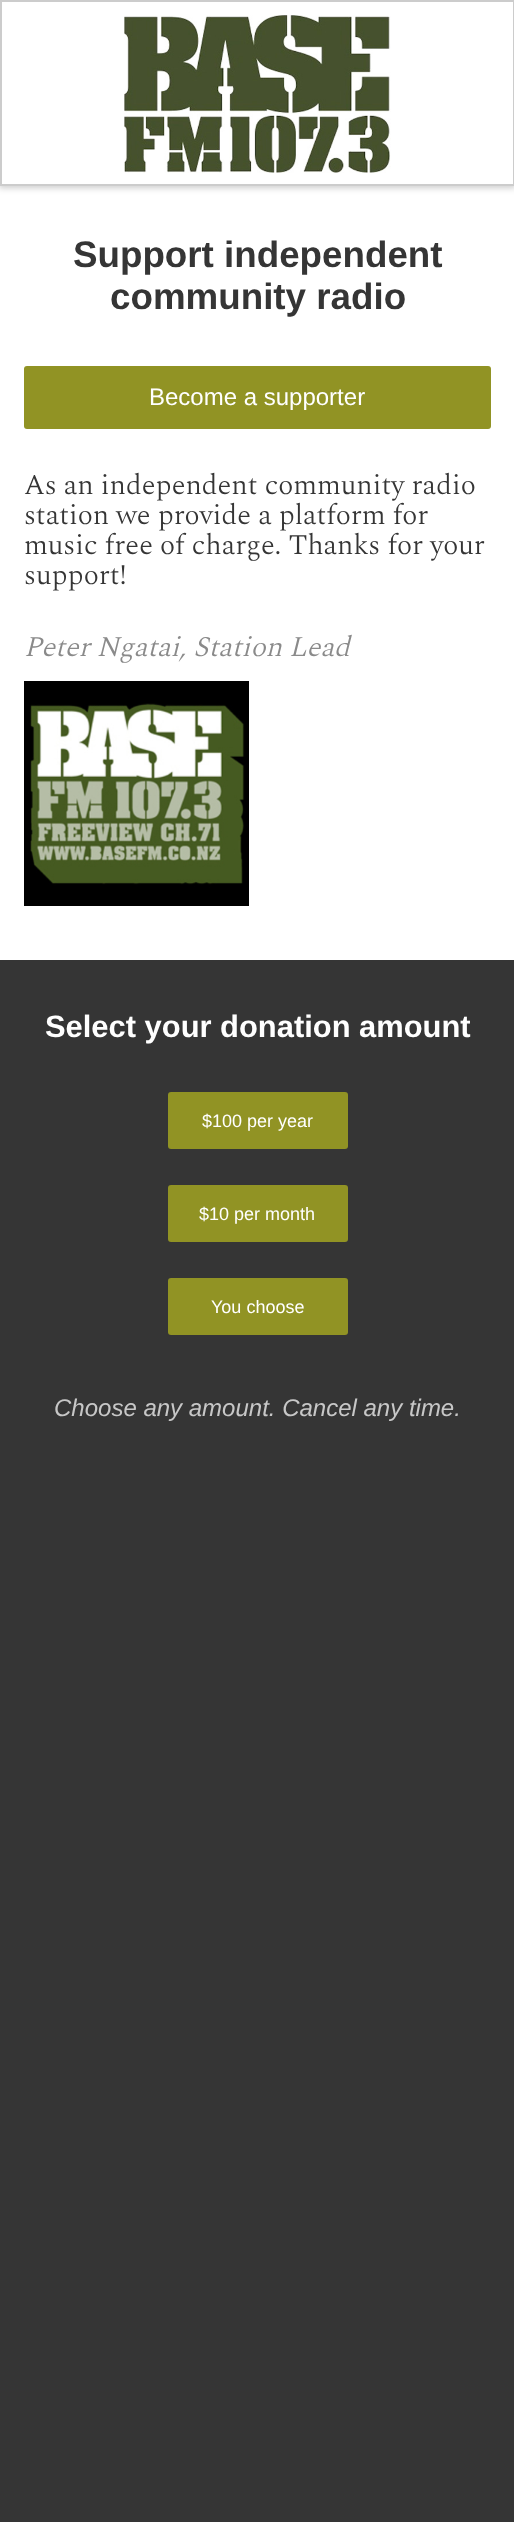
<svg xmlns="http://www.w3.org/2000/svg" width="514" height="2522">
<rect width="100%" height="100%" fill="#353535"/>
<rect y="186" width="514" height="774" fill="#fff"/>
<rect x="-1" y="-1" width="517" height="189" fill="#00000033" filter="blur(3px)"/>
<rect x="1" y="1" width="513" height="184" fill="#fff" stroke="#ccc" stroke-width="2"/>
<image x="124" y="15" width="267" height="158" href="media/1.png"/>
<text x="73" y="267" style="font-family:Liberation Sans;font-size:36.75px;font-weight:bold;fill:#353535">Support independent</text>
<text x="110" y="309" style="font-family:Liberation Sans;font-size:36.75px;font-weight:bold;fill:#353535">community radio</text>
<rect x="24" y="366" width="467" height="63" rx="3" fill="#919324"/>
<text x="149" y="405" style="font-family:Liberation Sans;font-size:24px;fill:#fff">Become a supporter</text>
<text x="24" y="494" style="font-family:Spectral;font-size:28.5px;font-weight:300;fill:#353535">As an independent community radio</text>
<text x="24" y="524" style="font-family:Spectral;font-size:28.5px;font-weight:300;fill:#353535">station we provide a platform for</text>
<text x="24" y="554" style="font-family:Spectral;font-size:28.5px;font-weight:300;fill:#353535">music free of charge. Thanks for your</text>
<text x="24" y="584" style="font-family:Spectral;font-size:28.5px;font-weight:300;fill:#353535">support!</text>
<text x="24" y="656" style="font-family:Spectral;font-size:28.5px;font-weight:300;font-style:italic;fill:#8a8a8a">Peter Ngatai, Station Lead</text>
<image x="24" y="681" width="225" height="225" href="media/2.png"/>
<text x="45" y="1037" style="font-family:Liberation Sans;font-size:30.9px;font-weight:bold;fill:#fff">Select your donation amount</text>
<rect x="168" y="1092" width="180" height="57" rx="3" fill="#919324"/>
<text x="202" y="1127" style="font-family:Liberation Sans;font-size:18px;fill:#fff">$100 per year</text>
<rect x="168" y="1185" width="180" height="57" rx="3" fill="#919324"/>
<text x="199" y="1220" style="font-family:Liberation Sans;font-size:18px;fill:#fff">$10 per month</text>
<rect x="168" y="1278" width="180" height="57" rx="3" fill="#919324"/>
<text x="211" y="1313" style="font-family:Liberation Sans;font-size:18px;fill:#fff">You choose</text>
<text x="54" y="1416" style="font-family:Liberation Sans;font-size:24px;font-style:italic;fill:#c7c7c7">Choose any amount. Cancel any time.</text>
</svg>
